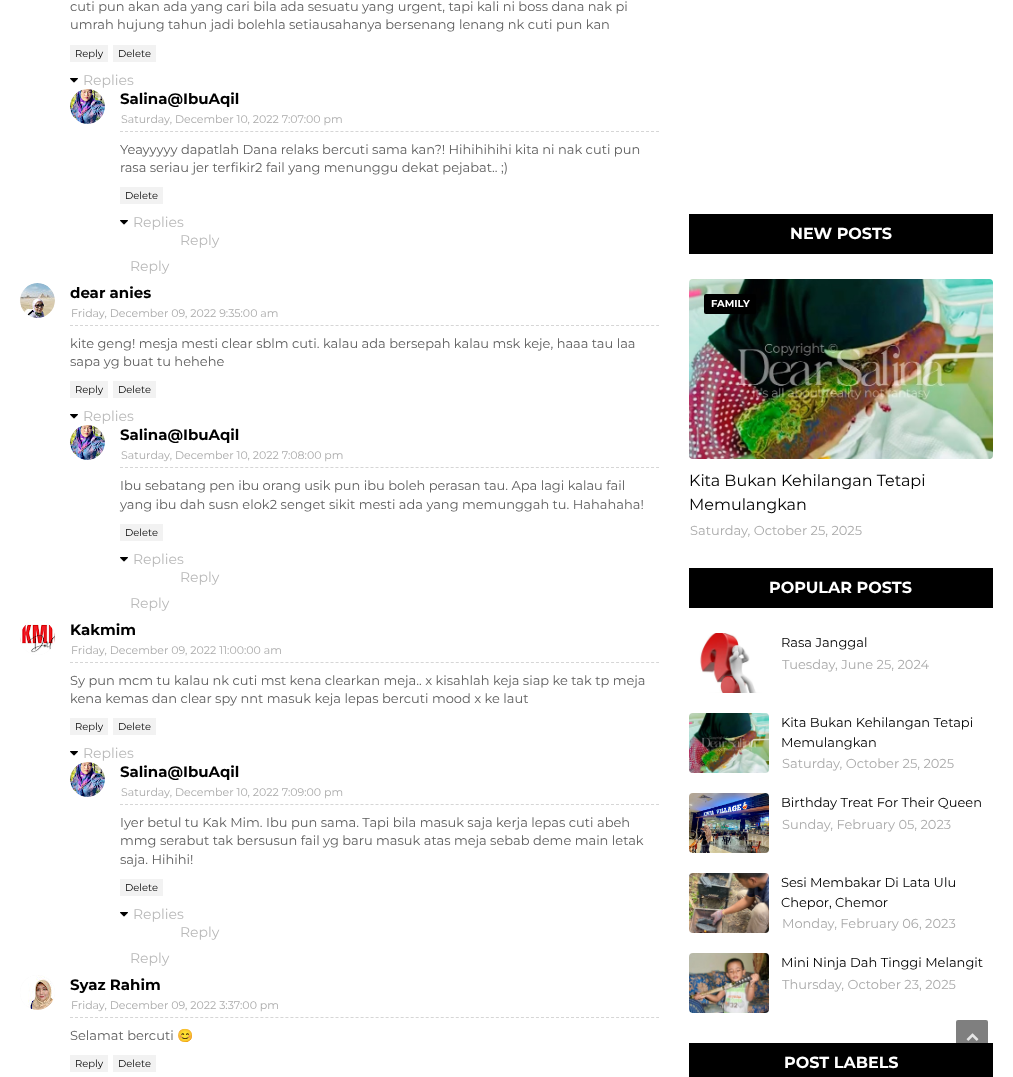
<svg xmlns="http://www.w3.org/2000/svg" width="1013" height="1077">
<rect width="100%" height="100%" fill="#fff"/>
<text x="70" y="11" style="font-family:Montserrat;font-size:13px;font-weight:100;fill:#5e5e5e">cuti pun akan ada yang cari bila ada sesuatu yang urgent, tapi kali ni boss dana nak pi</text>
<text x="70" y="29" style="font-family:Montserrat;font-size:13px;font-weight:100;fill:#5e5e5e">umrah hujung tahun jadi bolehla setiausahanya bersenang lenang nk cuti pun kan</text>
<rect x="70" y="45" width="38" height="17" fill="#f2f2f2"/>
<text x="75" y="57" style="font-family:Montserrat;font-size:10px;font-weight:100;fill:#000">Reply</text>
<rect x="113" y="45" width="43" height="17" fill="#f2f2f2"/>
<text x="118" y="57" style="font-family:Montserrat;font-size:10px;font-weight:100;fill:#000">Delete</text>
<image x="70" y="78" width="8" height="5" href="media/1.png"/>
<text x="83" y="85" style="font-family:Montserrat;font-size:14px;font-weight:100;fill:#b9b9b9">Replies</text>
<circle cx="87.5" cy="106.5" r="17.5" fill="#f8f8f8"/>
<image x="70" y="89" width="35" height="35" href="media/2.png"/>
<path d="M120 131.5h539" fill="none" stroke="#d6d6d6" stroke-dasharray="3 2.01"/>
<text x="120" y="104" style="font-family:Montserrat;font-size:15px;font-weight:bold;fill:#000">Salina@IbuAqil</text>
<text x="121" y="123" style="font-family:Montserrat;font-size:11px;font-weight:100;fill:#aaa">Saturday, December 10, 2022 7:07:00 pm</text>
<text x="120" y="154" style="font-family:Montserrat;font-size:13px;font-weight:100;fill:#5e5e5e">Yeayyyyy dapatlah Dana relaks bercuti sama kan?! Hihihihihi kita ni nak cuti pun</text>
<text x="120" y="172" style="font-family:Montserrat;font-size:13px;font-weight:100;fill:#5e5e5e">rasa seriau jer terfikir2 fail yang menunggu dekat pejabat.. ;)</text>
<rect x="120" y="187" width="43" height="17" fill="#f2f2f2"/>
<text x="125" y="199" style="font-family:Montserrat;font-size:10px;font-weight:100;fill:#000">Delete</text>
<image x="120" y="220" width="8" height="5" href="media/1.png"/>
<text x="133" y="227" style="font-family:Montserrat;font-size:14px;font-weight:100;fill:#b9b9b9">Replies</text>
<text x="180" y="245" style="font-family:Montserrat;font-size:14px;font-weight:100;fill:#b9b9b9">Reply</text>
<text x="130" y="271" style="font-family:Montserrat;font-size:14px;font-weight:100;fill:#b9b9b9">Reply</text>
<circle cx="37.5" cy="300.5" r="17.5" fill="#f8f8f8"/>
<image x="20" y="283" width="35" height="35" href="media/3.png"/>
<path d="M70 325.5h589" fill="none" stroke="#d6d6d6" stroke-dasharray="3 2.01"/>
<text x="70" y="298" style="font-family:Montserrat;font-size:15px;font-weight:bold;fill:#000">dear anies</text>
<text x="71" y="317" style="font-family:Montserrat;font-size:11px;font-weight:100;fill:#aaa">Friday, December 09, 2022 9:35:00 am</text>
<text x="70" y="348" style="font-family:Montserrat;font-size:13px;font-weight:100;fill:#5e5e5e">kite geng! mesja mesti clear sblm cuti. kalau ada bersepah kalau msk keje, haaa tau laa</text>
<text x="70" y="366" style="font-family:Montserrat;font-size:13px;font-weight:100;fill:#5e5e5e">sapa yg buat tu hehehe</text>
<rect x="70" y="381" width="38" height="17" fill="#f2f2f2"/>
<text x="75" y="393" style="font-family:Montserrat;font-size:10px;font-weight:100;fill:#000">Reply</text>
<rect x="113" y="381" width="43" height="17" fill="#f2f2f2"/>
<text x="118" y="393" style="font-family:Montserrat;font-size:10px;font-weight:100;fill:#000">Delete</text>
<image x="70" y="414" width="8" height="5" href="media/1.png"/>
<text x="83" y="421" style="font-family:Montserrat;font-size:14px;font-weight:100;fill:#b9b9b9">Replies</text>
<circle cx="87.5" cy="442.5" r="17.5" fill="#f8f8f8"/>
<image x="70" y="425" width="35" height="35" href="media/2.png"/>
<path d="M120 467.5h539" fill="none" stroke="#d6d6d6" stroke-dasharray="3 2.01"/>
<text x="120" y="440" style="font-family:Montserrat;font-size:15px;font-weight:bold;fill:#000">Salina@IbuAqil</text>
<text x="121" y="459" style="font-family:Montserrat;font-size:11px;font-weight:100;fill:#aaa">Saturday, December 10, 2022 7:08:00 pm</text>
<text x="120" y="490" style="font-family:Montserrat;font-size:13px;font-weight:100;fill:#5e5e5e">Ibu sebatang pen ibu orang usik pun ibu boleh perasan tau. Apa lagi kalau fail</text>
<text x="120" y="509" style="font-family:Montserrat;font-size:13px;font-weight:100;fill:#5e5e5e">yang ibu dah susn elok2 senget sikit mesti ada yang memunggah tu. Hahahaha!</text>
<rect x="120" y="524" width="43" height="17" fill="#f2f2f2"/>
<text x="125" y="536" style="font-family:Montserrat;font-size:10px;font-weight:100;fill:#000">Delete</text>
<image x="120" y="557" width="8" height="5" href="media/1.png"/>
<text x="133" y="564" style="font-family:Montserrat;font-size:14px;font-weight:100;fill:#b9b9b9">Replies</text>
<text x="180" y="582" style="font-family:Montserrat;font-size:14px;font-weight:100;fill:#b9b9b9">Reply</text>
<text x="130" y="608" style="font-family:Montserrat;font-size:14px;font-weight:100;fill:#b9b9b9">Reply</text>
<circle cx="37.5" cy="637.5" r="17.5" fill="#f8f8f8"/>
<image x="20" y="620" width="35" height="35" href="media/4.png"/>
<path d="M70 662.5h589" fill="none" stroke="#d6d6d6" stroke-dasharray="3 2.01"/>
<text x="70" y="635" style="font-family:Montserrat;font-size:15px;font-weight:bold;fill:#000">Kakmim</text>
<text x="71" y="654" style="font-family:Montserrat;font-size:11px;font-weight:100;fill:#aaa">Friday, December 09, 2022 11:00:00 am</text>
<text x="70" y="685" style="font-family:Montserrat;font-size:13px;font-weight:100;fill:#5e5e5e">Sy pun mcm tu kalau nk cuti mst kena clearkan meja.. x kisahlah keja siap ke tak tp meja</text>
<text x="70" y="703" style="font-family:Montserrat;font-size:13px;font-weight:100;fill:#5e5e5e">kena kemas dan clear spy nnt masuk keja lepas bercuti mood x ke laut</text>
<rect x="70" y="718" width="38" height="17" fill="#f2f2f2"/>
<text x="75" y="730" style="font-family:Montserrat;font-size:10px;font-weight:100;fill:#000">Reply</text>
<rect x="113" y="718" width="43" height="17" fill="#f2f2f2"/>
<text x="118" y="730" style="font-family:Montserrat;font-size:10px;font-weight:100;fill:#000">Delete</text>
<image x="70" y="751" width="8" height="5" href="media/1.png"/>
<text x="83" y="758" style="font-family:Montserrat;font-size:14px;font-weight:100;fill:#b9b9b9">Replies</text>
<circle cx="87.5" cy="779.5" r="17.5" fill="#f8f8f8"/>
<image x="70" y="762" width="35" height="35" href="media/2.png"/>
<path d="M120 804.5h539" fill="none" stroke="#d6d6d6" stroke-dasharray="3 2.01"/>
<text x="120" y="777" style="font-family:Montserrat;font-size:15px;font-weight:bold;fill:#000">Salina@IbuAqil</text>
<text x="121" y="796" style="font-family:Montserrat;font-size:11px;font-weight:100;fill:#aaa">Saturday, December 10, 2022 7:09:00 pm</text>
<text x="120" y="827" style="font-family:Montserrat;font-size:13px;font-weight:100;fill:#5e5e5e">Iyer betul tu Kak Mim. Ibu pun sama. Tapi bila masuk saja kerja lepas cuti abeh</text>
<text x="120" y="845" style="font-family:Montserrat;font-size:13px;font-weight:100;fill:#5e5e5e">mmg serabut tak bersusun fail yg baru masuk atas meja sebab deme main letak</text>
<text x="120" y="864" style="font-family:Montserrat;font-size:13px;font-weight:100;fill:#5e5e5e">saja. Hihihi!</text>
<rect x="120" y="879" width="43" height="17" fill="#f2f2f2"/>
<text x="125" y="891" style="font-family:Montserrat;font-size:10px;font-weight:100;fill:#000">Delete</text>
<image x="120" y="912" width="8" height="5" href="media/1.png"/>
<text x="133" y="919" style="font-family:Montserrat;font-size:14px;font-weight:100;fill:#b9b9b9">Replies</text>
<text x="180" y="937" style="font-family:Montserrat;font-size:14px;font-weight:100;fill:#b9b9b9">Reply</text>
<text x="130" y="963" style="font-family:Montserrat;font-size:14px;font-weight:100;fill:#b9b9b9">Reply</text>
<circle cx="37.5" cy="992.5" r="17.5" fill="#f8f8f8"/>
<image x="20" y="975" width="35" height="35" href="media/5.png"/>
<path d="M70 1017.5h589" fill="none" stroke="#d6d6d6" stroke-dasharray="3 2.01"/>
<text x="70" y="990" style="font-family:Montserrat;font-size:15px;font-weight:bold;fill:#000">Syaz Rahim</text>
<text x="71" y="1009" style="font-family:Montserrat;font-size:11px;font-weight:100;fill:#aaa">Friday, December 09, 2022 3:37:00 pm</text>
<text x="70" y="1040" style="font-family:Montserrat;font-size:13px;font-weight:100;fill:#5e5e5e">Selamat bercuti</text>
<text x="177" y="1040" style="font-family:Noto Color Emoji;font-size:13px;fill:#5e5e5e">😊</text>
<rect x="70" y="1055" width="38" height="17" fill="#f2f2f2"/>
<text x="75" y="1067" style="font-family:Montserrat;font-size:10px;font-weight:100;fill:#000">Reply</text>
<rect x="113" y="1055" width="43" height="17" fill="#f2f2f2"/>
<text x="118" y="1067" style="font-family:Montserrat;font-size:10px;font-weight:100;fill:#000">Delete</text>
<rect x="689" y="214" width="304" height="40" fill="#000"/>
<text x="790" y="239" style="font-family:Montserrat;font-size:16px;font-weight:bold;fill:#fff">NEW POSTS</text>
<image x="689" y="279" width="304" height="180" href="media/6.png"/>
<rect x="704" y="294" width="52" height="20" rx="2" fill="#000"/>
<text x="711" y="307" style="font-family:Montserrat;font-size:10px;font-weight:bold;fill:#fff">FAMILY</text>
<text x="689" y="486" style="font-family:Montserrat;font-size:16px;font-weight:100;fill:#000">Kita Bukan Kehilangan Tetapi</text>
<text x="689" y="510" style="font-family:Montserrat;font-size:16px;font-weight:100;fill:#000">Memulangkan</text>
<text x="690" y="535" style="font-family:Montserrat;font-size:13px;font-weight:100;fill:#aaa">Saturday, October 25, 2025</text>
<rect x="689" y="568" width="304" height="40" fill="#000"/>
<text x="769" y="593" style="font-family:Montserrat;font-size:16px;font-weight:bold;fill:#fff">POPULAR POSTS</text>
<image x="689" y="633" width="80" height="60" href="media/7.png"/>
<text x="781" y="647" style="font-family:Montserrat;font-size:13px;font-weight:100;fill:#000">Rasa Janggal</text>
<text x="782" y="669" style="font-family:Montserrat;font-size:13px;font-weight:100;fill:#aaa">Tuesday, June 25, 2024</text>
<image x="689" y="713" width="80" height="60" href="media/8.png"/>
<text x="781" y="727" style="font-family:Montserrat;font-size:13px;font-weight:100;fill:#000">Kita Bukan Kehilangan Tetapi</text>
<text x="781" y="747" style="font-family:Montserrat;font-size:13px;font-weight:100;fill:#000">Memulangkan</text>
<text x="782" y="768" style="font-family:Montserrat;font-size:13px;font-weight:100;fill:#aaa">Saturday, October 25, 2025</text>
<image x="689" y="793" width="80" height="60" href="media/9.png"/>
<text x="781" y="807" style="font-family:Montserrat;font-size:13px;font-weight:100;fill:#000">Birthday Treat For Their Queen</text>
<text x="782" y="829" style="font-family:Montserrat;font-size:13px;font-weight:100;fill:#aaa">Sunday, February 05, 2023</text>
<image x="689" y="873" width="80" height="60" href="media/10.png"/>
<text x="781" y="887" style="font-family:Montserrat;font-size:13px;font-weight:100;fill:#000">Sesi Membakar Di Lata Ulu</text>
<text x="781" y="907" style="font-family:Montserrat;font-size:13px;font-weight:100;fill:#000">Chepor, Chemor</text>
<text x="782" y="928" style="font-family:Montserrat;font-size:13px;font-weight:100;fill:#aaa">Monday, February 06, 2023</text>
<image x="689" y="953" width="80" height="60" href="media/11.png"/>
<text x="781" y="967" style="font-family:Montserrat;font-size:13px;font-weight:100;fill:#000">Mini Ninja Dah Tinggi Melangit</text>
<text x="782" y="989" style="font-family:Montserrat;font-size:13px;font-weight:100;fill:#aaa">Thursday, October 23, 2025</text>
<rect x="689" y="1043" width="304" height="34" fill="#000"/>
<text x="784" y="1068" style="font-family:Montserrat;font-size:16px;font-weight:bold;fill:#fff">POST LABELS</text>
<rect x="956" y="1020" width="32" height="32" rx="2" fill="#00000080"/>
<image x="966" y="1033" width="13" height="8" href="media/12.png"/>
</svg>
